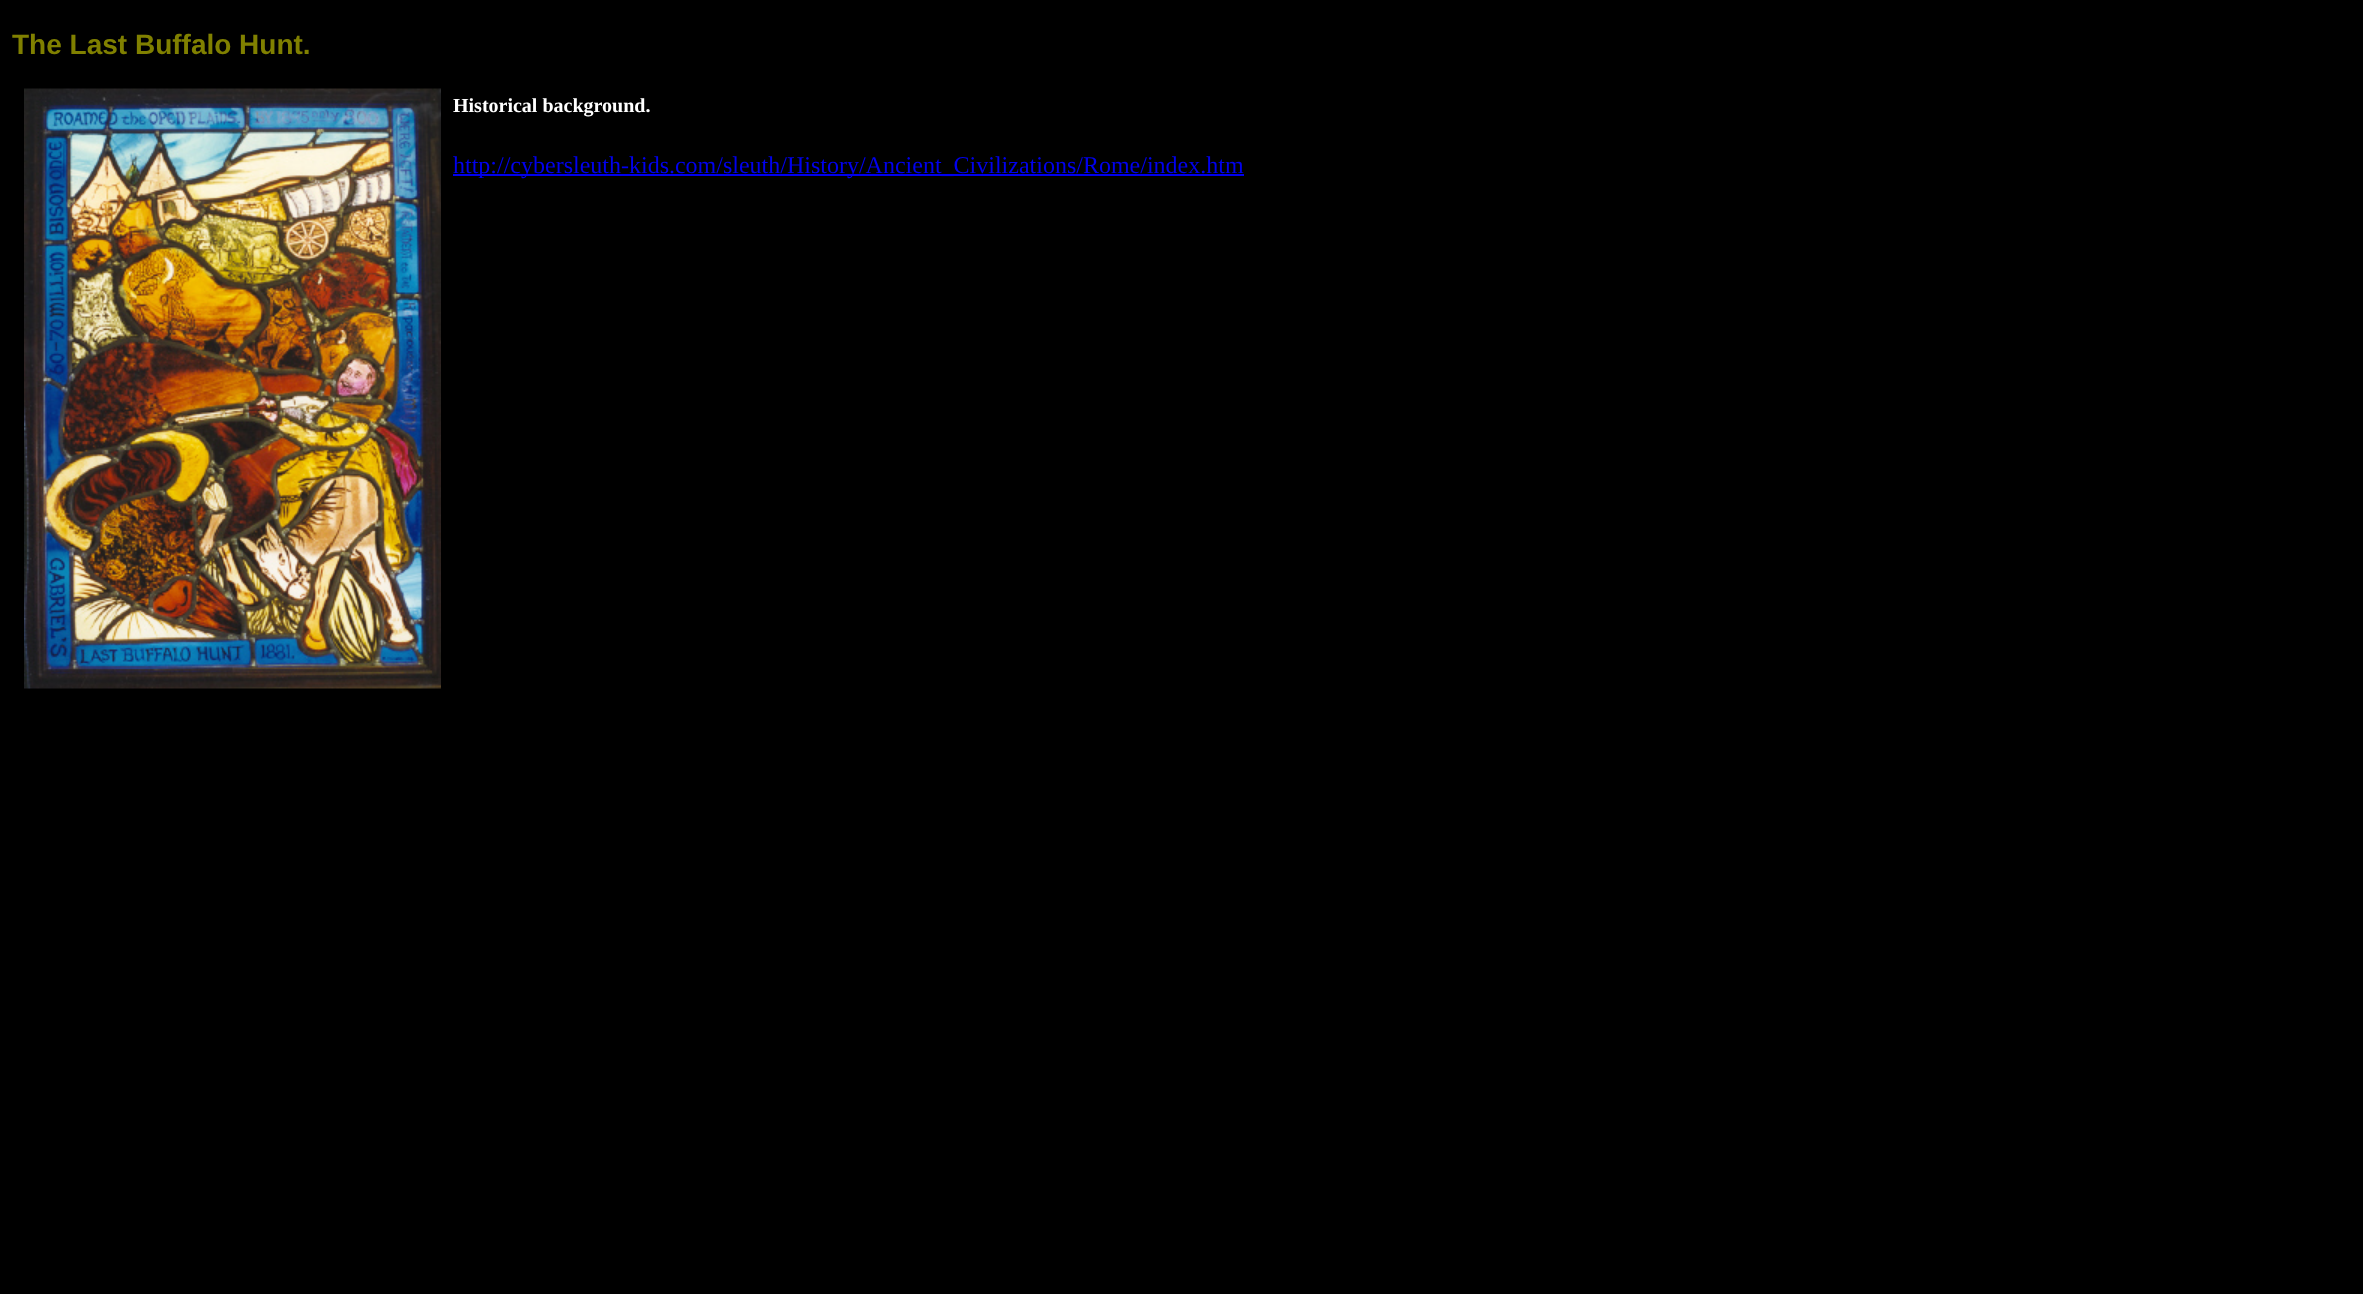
<svg xmlns="http://www.w3.org/2000/svg" width="2363" height="1294">
<rect width="100%" height="100%" fill="#000"/>
<text x="12" y="54" style="font-family:Liberation Sans;font-size:28px;font-weight:bold;fill:#808000">The Last Buffalo Hunt.</text>
<image x="24" y="88" width="417" height="601" href="media/1.png"/>
<text x="453" y="112" style="font-family:Liberation Serif;font-size:20px;font-weight:bold;fill:#fff">Historical background.</text>
<rect x="453" y="174" width="791" height="2" fill="#00e"/>
<text x="453" y="173" style="font-family:Liberation Serif;font-size:24px;fill:#00e">http://cybersleuth-kids.com/sleuth/History/Ancient_Civilizations/Rome/index.htm</text>
</svg>
